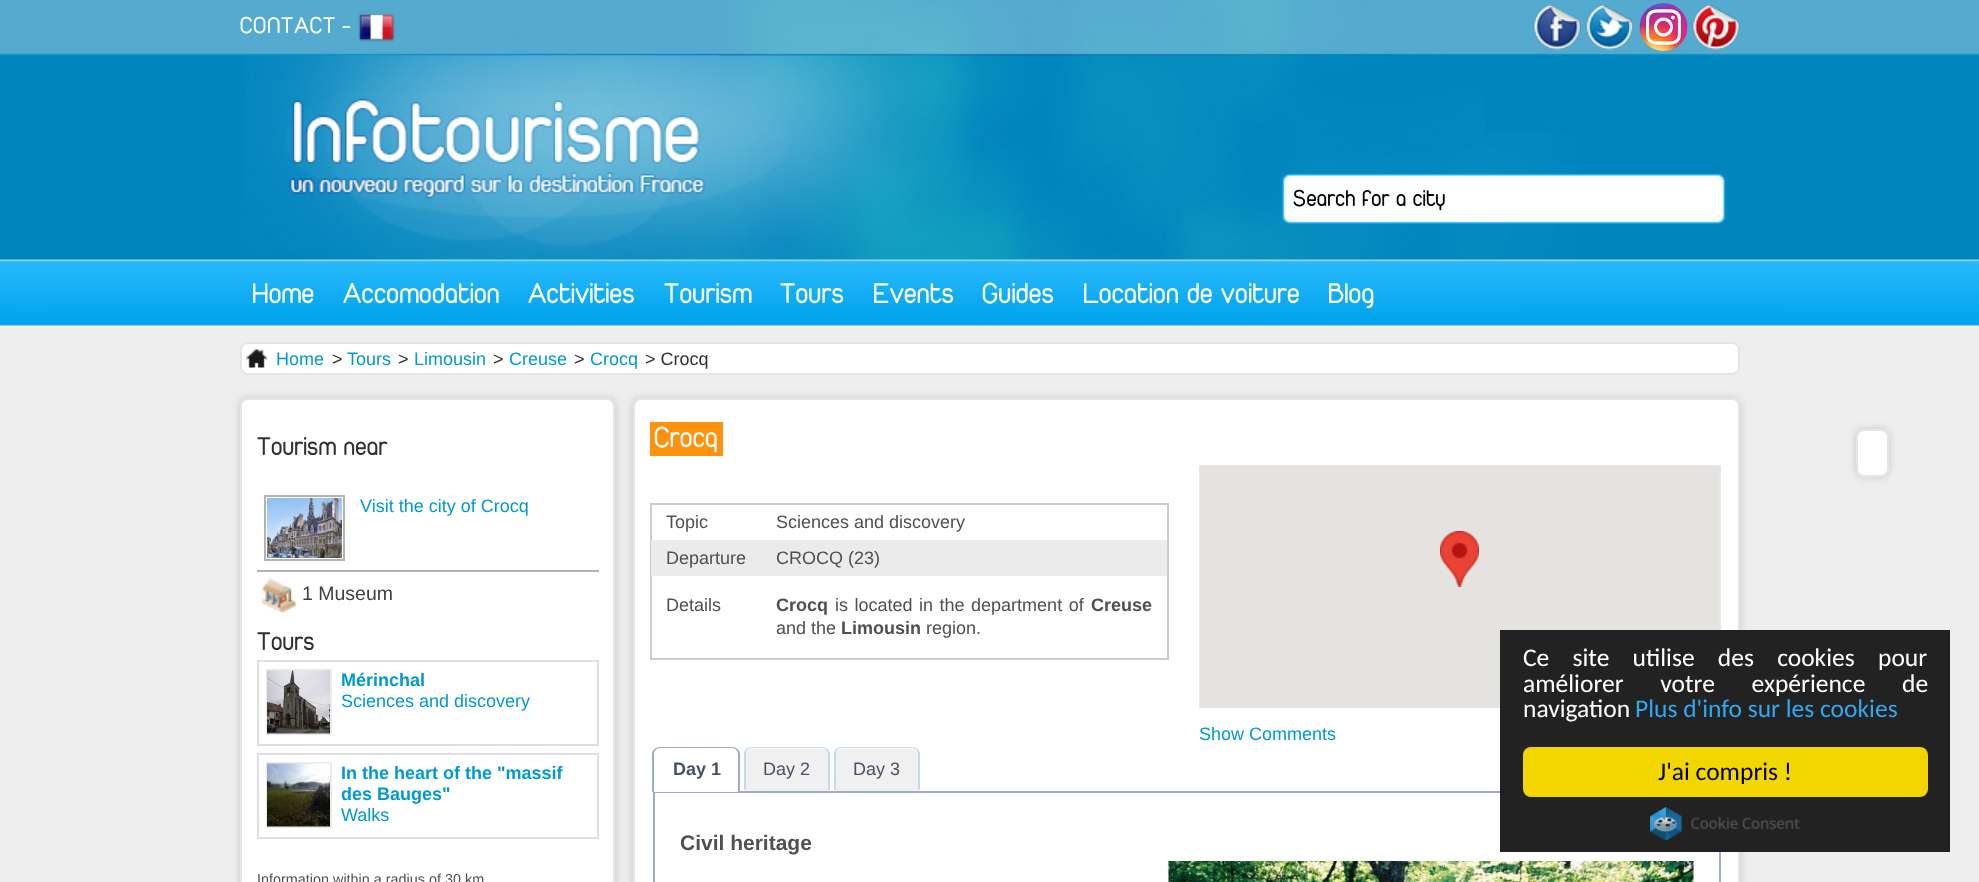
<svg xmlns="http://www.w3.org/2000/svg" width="1979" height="882">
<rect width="100%" height="100%" fill="#eee"/>
<image x="0" y="0" width="1979" height="327" href="media/1.png"/>
<image x="245" y="0" width="1481" height="262" href="media/2.png"/>
<text x="240" y="33" style="font-family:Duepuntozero;font-size:24px;letter-spacing:0.75px;fill:#fff">CONTACT</text>
<text x="342" y="33" style="font-family:Duepuntozero;font-size:21px;letter-spacing:0.75px;fill:#fff">-</text>
<image x="358" y="13" width="37" height="29" href="media/3.png"/>
<image x="1533" y="4" width="48" height="46" href="media/4.png"/>
<image x="1585" y="4" width="49" height="46" href="media/5.png"/>
<image x="1639" y="3" width="49" height="48" href="media/6.png"/>
<image x="1692" y="4" width="48" height="46" href="media/7.png"/>
<image x="292" y="55" width="427" height="137" href="media/8.png"/>
<rect x="1290" y="176" width="4" height="43" fill="#fff"/>
<text x="1293" y="206" style="font-family:Duepuntozero;font-size:24px;fill:#000">Search for a city</text>
<text x="252" y="303" style="font-family:Duepuntozero;font-size:30px;fill:#fff">Home</text>
<text x="343" y="303" style="font-family:Duepuntozero;font-size:30px;fill:#fff">Accomodation</text>
<text x="528" y="303" style="font-family:Duepuntozero;font-size:30px;fill:#fff">Activities</text>
<text x="664" y="303" style="font-family:Duepuntozero;font-size:30px;fill:#fff">Tourism</text>
<text x="780" y="303" style="font-family:Duepuntozero;font-size:30px;fill:#fff">Tours</text>
<text x="873" y="303" style="font-family:Duepuntozero;font-size:30px;fill:#fff">Events</text>
<text x="982" y="303" style="font-family:Duepuntozero;font-size:30px;fill:#fff">Guides</text>
<text x="1083" y="303" style="font-family:Duepuntozero;font-size:30px;fill:#fff">Location de voiture</text>
<text x="1328" y="303" style="font-family:Duepuntozero;font-size:30px;fill:#fff">Blog</text>
<rect x="240" y="342" width="1500" height="33" rx="8" fill="#fff"/>
<rect x="241" y="343" width="1498" height="31" rx="7" fill="none" stroke="#bdbdbd63" stroke-width="2"/>
<image x="246" y="349" width="22" height="19" href="media/9.png"/>
<text x="276" y="365" style="font-family:Liberation Sans;font-size:18px;fill:#009ad2">Home</text>
<text x="332" y="365" style="font-family:Liberation Sans;font-size:18px;fill:#303030">&gt;</text>
<text x="347" y="365" style="font-family:Liberation Sans;font-size:18px;fill:#009ad2">Tours</text>
<text x="398" y="365" style="font-family:Liberation Sans;font-size:18px;fill:#303030">&gt;</text>
<text x="414" y="365" style="font-family:Liberation Sans;font-size:18px;fill:#009ad2">Limousin</text>
<text x="493" y="365" style="font-family:Liberation Sans;font-size:18px;fill:#303030">&gt;</text>
<text x="509" y="365" style="font-family:Liberation Sans;font-size:18px;fill:#009ad2">Creuse</text>
<text x="574" y="365" style="font-family:Liberation Sans;font-size:18px;fill:#303030">&gt;</text>
<text x="590" y="365" style="font-family:Liberation Sans;font-size:18px;fill:#009ad2">Crocq</text>
<text x="645" y="365" style="font-family:Liberation Sans;font-size:18px;fill:#303030">&gt; Crocq</text>
<rect x="240" y="398" width="375" height="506" rx="8" fill="#00000029" filter="blur(4.5px)"/>
<rect x="240" y="398" width="375" height="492" rx="8" fill="#fff"/>
<rect x="241" y="399" width="373" height="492" rx="7" fill="none" stroke="#bdbdbd63" stroke-width="2"/>
<text x="257" y="455" style="font-family:Duepuntozero;font-size:27px;fill:#303030">Tourism near</text>
<rect x="257" y="570" width="342" height="2" fill="#b2b2b2"/>
<rect x="265" y="496" width="79" height="64" fill="none" stroke="#b2b2b2" stroke-width="2"/>
<image x="267" y="498" width="75" height="60" href="media/10.png"/>
<text x="360" y="512" style="font-family:Liberation Sans;font-size:18px;fill:#009ad2">Visit the city of Crocq</text>
<image x="262" y="577" width="35" height="36" href="media/11.png"/>
<text x="302" y="600" style="font-family:Liberation Sans;font-size:19.5px;fill:#404040">1 Museum</text>
<text x="257" y="650" style="font-family:Duepuntozero;font-size:27px;fill:#303030">Tours</text>
<rect x="258" y="661" width="340" height="84" fill="none" stroke="#e0e0e0" stroke-width="2"/>
<rect x="267" y="670" width="64" height="64" fill="none" stroke="#ebebeb" stroke-width="2"/>
<image x="267" y="670" width="63" height="64" href="media/12.png"/>
<text x="341" y="686" style="font-family:Liberation Sans;font-size:18px;font-weight:bold;fill:#009ad2">Mérinchal</text>
<text x="341" y="707" style="font-family:Liberation Sans;font-size:18px;fill:#009ad2">Sciences and discovery</text>
<rect x="258" y="754" width="340" height="84" fill="none" stroke="#e0e0e0" stroke-width="2"/>
<rect x="267" y="763" width="64" height="64" fill="none" stroke="#ebebeb" stroke-width="2"/>
<image x="267" y="763" width="63" height="64" href="media/13.png"/>
<text x="341" y="779" style="font-family:Liberation Sans;font-size:18px;font-weight:bold;fill:#009ad2">In the heart of the "massif</text>
<text x="341" y="800" style="font-family:Liberation Sans;font-size:18px;font-weight:bold;fill:#009ad2">des Bauges"</text>
<text x="341" y="821" style="font-family:Liberation Sans;font-size:18px;fill:#009ad2">Walks</text>
<text x="257" y="884" style="font-family:Liberation Sans;font-size:14.4px;fill:#505050">Information within a radius of 30 km</text>
<rect x="633" y="398" width="1107" height="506" rx="8" fill="#00000029" filter="blur(4.5px)"/>
<rect x="633" y="398" width="1107" height="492" rx="8" fill="#fff"/>
<rect x="634" y="399" width="1105" height="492" rx="7" fill="none" stroke="#bdbdbd63" stroke-width="2"/>
<rect x="650" y="422" width="73" height="34" fill="#ff910c"/>
<text x="654" y="447" style="font-family:Duepuntozero;font-size:30px;fill:#fff">Crocq</text>
<rect x="1856" y="429" width="33" height="48" rx="8" fill="#00000029" filter="blur(4.5px)"/>
<rect x="1856" y="429" width="33" height="48" rx="8" fill="#fff"/>
<rect x="1857" y="430" width="31" height="46" rx="7" fill="none" stroke="#bdbdbd63" stroke-width="2"/>
<rect x="651" y="504" width="517" height="155" fill="none" stroke="#ccc" stroke-width="2"/>
<text x="666" y="528" style="font-family:Liberation Sans;font-size:18px;fill:#505050">Topic</text>
<text x="776" y="528" style="font-family:Liberation Sans;font-size:18px;fill:#505050">Sciences and discovery</text>
<rect x="651" y="540" width="516" height="36" fill="#ebebeb"/>
<text x="666" y="564" style="font-family:Liberation Sans;font-size:18px;fill:#505050">Departure</text>
<text x="776" y="564" style="font-family:Liberation Sans;font-size:18px;fill:#505050">CROCQ (23)</text>
<text x="666" y="611" style="font-family:Liberation Sans;font-size:18px;fill:#505050">Details</text>
<text x="776" y="611" style="font-family:Liberation Sans;font-size:18px;font-weight:bold;fill:#505050">Crocq</text>
<text x="835" y="611" word-spacing="1.5" style="font-family:Liberation Sans;font-size:18px;fill:#505050">is located in the department of</text>
<text x="1091" y="611" style="font-family:Liberation Sans;font-size:18px;font-weight:bold;fill:#505050">Creuse</text>
<text x="776" y="634" style="font-family:Liberation Sans;font-size:18px;fill:#505050">and the</text>
<text x="841" y="634" style="font-family:Liberation Sans;font-size:18px;font-weight:bold;fill:#505050">Limousin</text>
<text x="926" y="634" style="font-family:Liberation Sans;font-size:18px;fill:#505050">region.</text>
<rect x="1200" y="466" width="520" height="241" fill="none" stroke="#e6e6e6" stroke-width="2"/>
<rect x="1200" y="467" width="519" height="240" fill="#e5e3df"/>
<image x="1440" y="531" width="39" height="56" href="media/14.png"/>
<text x="1199" y="740" style="font-family:Liberation Sans;font-size:18px;fill:#009ad2">Show Comments</text>
<rect x="654" y="792" width="1066" height="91" fill="none" stroke="#9fabc5" stroke-width="2"/>
<path d="M660 749h72c3.5 0 6 2.5 6 6v37h-84v-37c0-3.5 2.5-6 6-6z" fill="#fff"/>
<path d="M660 747h72c4 0 8 3 8 7v38h-88v-38c0-4 4-7 8-7zm0 1h72c3 0 6 3 6 6v38h-84v-38c0-3 3-6 6-6z" fill="#9fabc5" fill-rule="evenodd"/>
<text x="673" y="775" style="font-family:Liberation Sans;font-size:18px;font-weight:bold;fill:#485166">Day 1</text>
<path d="M752 749h70c3.5 0 6 2.5 6 6v36h-82v-36c0-3.5 2.5-6 6-6z" fill="#f0f0f0"/>
<path d="M752 747h70c4 0 8 3 8 7v36h-86v-36c0-4 3-7 8-7zm0 1h70c3 0 6 3 6 6v36h-82v-36c0-3 2-6 6-6z" fill="#c5dbec" fill-rule="evenodd"/>
<text x="763" y="775" style="font-family:Liberation Sans;font-size:18px;fill:#485166">Day 2</text>
<path d="M842 749h70c3.5 0 6 2.5 6 6v36h-82v-36c0-3.5 2.5-6 6-6z" fill="#f0f0f0"/>
<path d="M842 747h70c4 0 8 3 8 7v36h-86v-36c0-4 3-7 8-7zm0 1h70c3 0 6 3 6 6v36h-82v-36c0-3 2-6 6-6z" fill="#c5dbec" fill-rule="evenodd"/>
<text x="853" y="775" style="font-family:Liberation Sans;font-size:18px;fill:#485166">Day 3</text>
<text x="680" y="850" style="font-family:Liberation Sans;font-size:21px;font-weight:bold;fill:#505050">Civil heritage</text>
<image x="1168" y="861" width="526" height="21" href="media/15.png"/>
<rect x="1500" y="630" width="450" height="222" fill="#222"/>
<text x="1523" y="666" word-spacing="17.5" style="font-family:Carlito;font-size:25.5px;fill:#fff">Ce site utilise des cookies pour</text>
<text x="1523" y="692" word-spacing="31" style="font-family:Carlito;font-size:25.5px;fill:#fff">améliorer votre expérience de</text>
<text x="1523" y="717" style="font-family:Carlito;font-size:25.5px;fill:#fff">navigation</text>
<text x="1635" y="717" style="font-family:Carlito;font-size:25.5px;fill:#31a8f0">Plus d'info sur les cookies</text>
<rect x="1523" y="747" width="405" height="50" rx="8" fill="#f1d600"/>
<text x="1658" y="780" style="font-family:Carlito;font-size:25.5px;fill:#000">J'ai compris !</text>
<image x="1650" y="807" width="150" height="33" href="media/16.png"/>
</svg>
